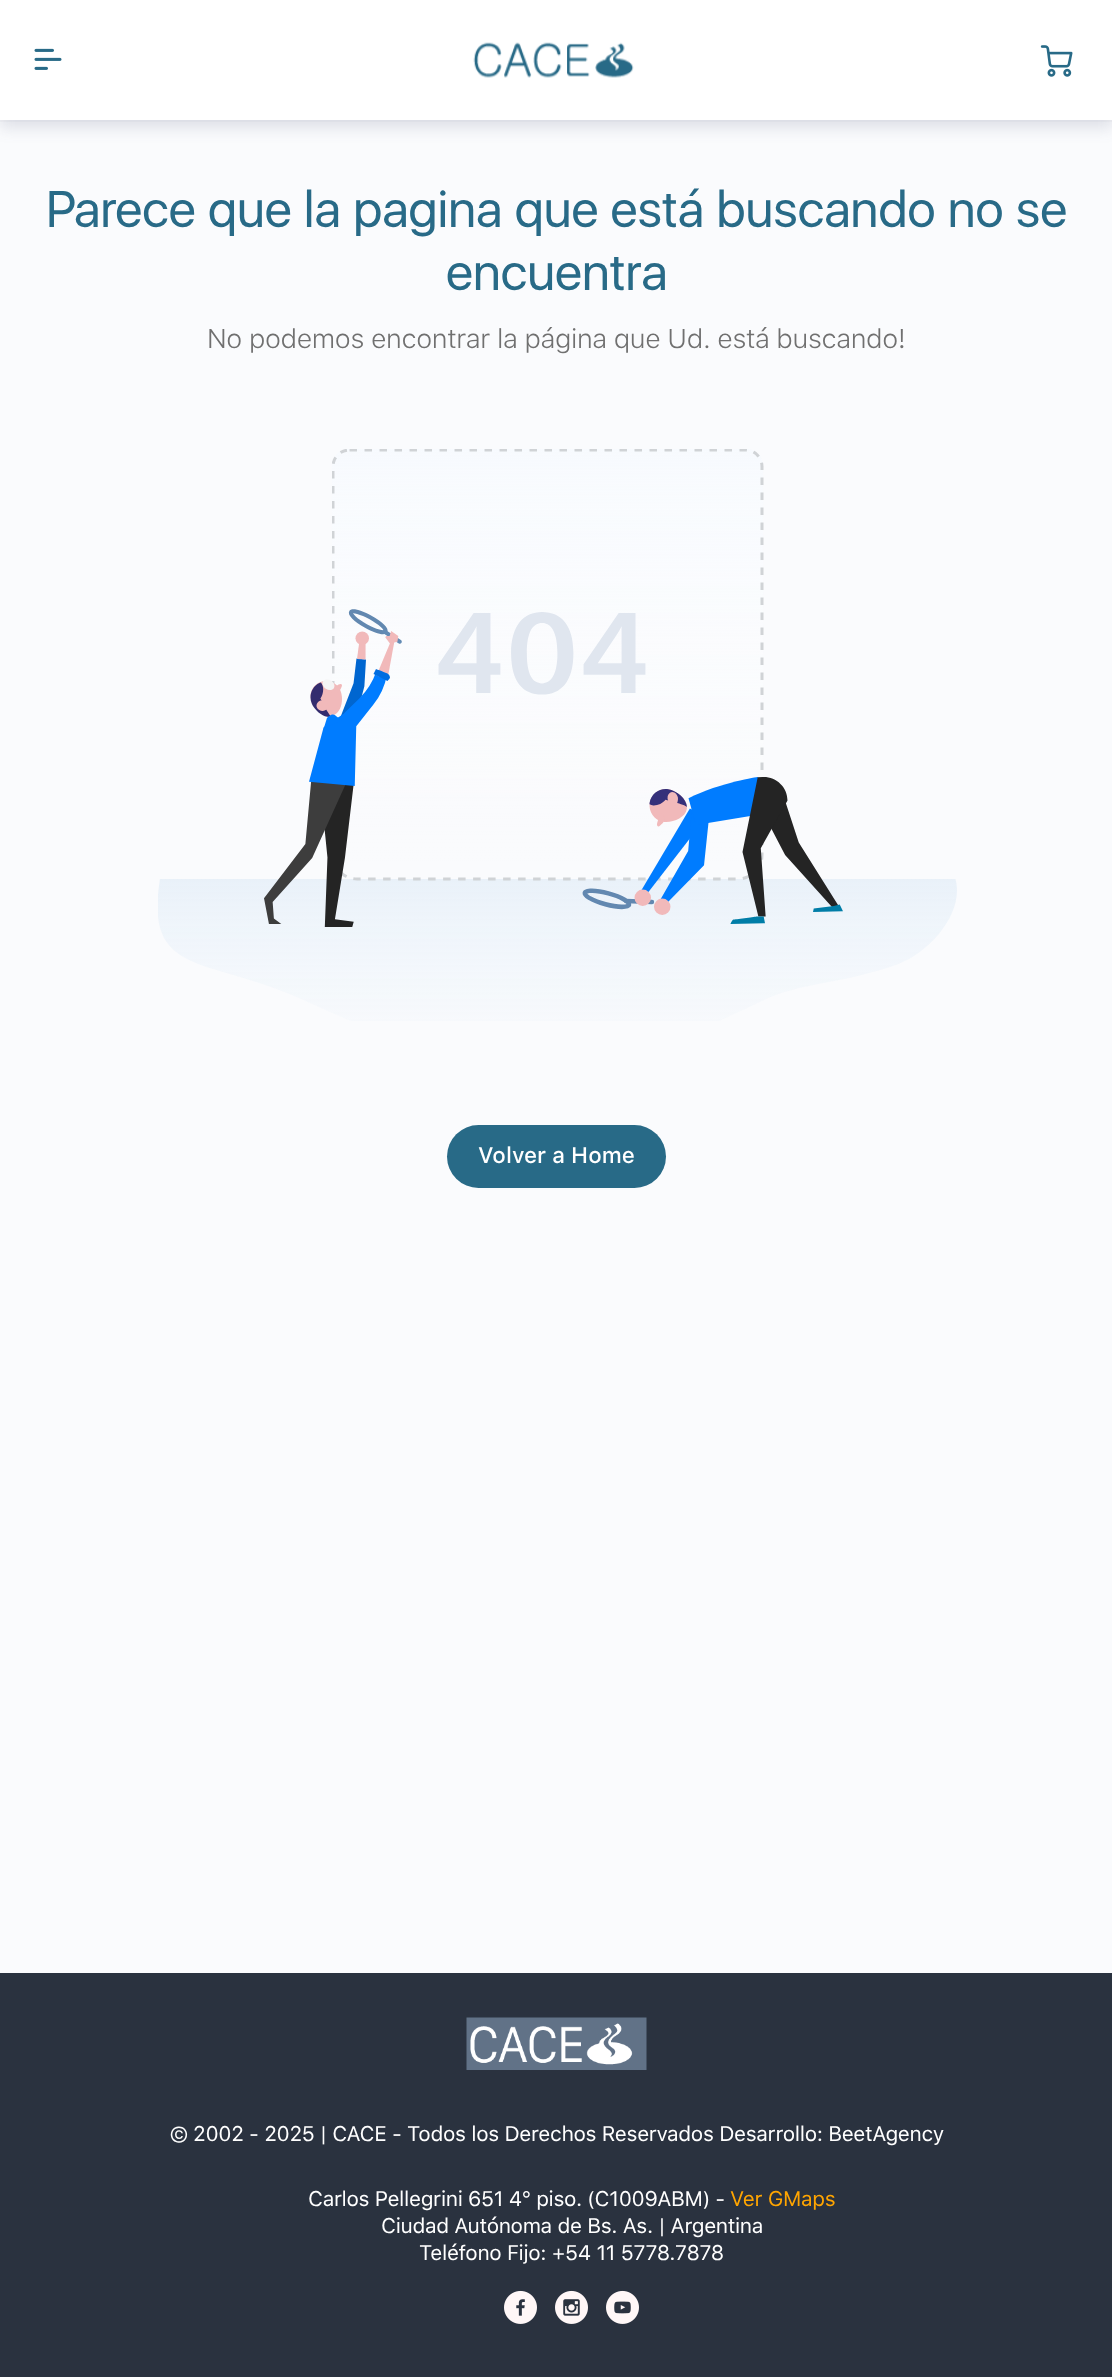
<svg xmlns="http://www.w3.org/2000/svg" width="1112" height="2377">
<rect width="100%" height="100%" fill="#fafbfd"/>
<rect y="8" width="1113" height="120" fill="#41476c26" filter="blur(7.5px)"/>
<rect y="120" width="1112" height="2" fill="#8b8d9d0d"/>
<rect width="1112" height="120" fill="#fff"/>
<image x="34" y="48" width="28" height="22" href="media/1.png"/>
<image x="473" y="42" width="161" height="36" href="media/2.png"/>
<image x="1040" y="45" width="33" height="32" href="media/3.png"/>
<text x="46" y="227" style="font-family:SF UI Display;font-size:51px;fill:#286a87">Parece que la pagina que está buscando no se</text>
<text x="446" y="290" style="font-family:SF UI Display;font-size:51px;fill:#286a87">encuentra</text>
<text x="207" y="348" style="font-family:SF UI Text;font-size:27px;font-weight:300;letter-spacing:-0.35px;fill:#707070">No podemos encontrar la página que Ud. está buscando!</text>
<image x="158" y="449" width="799" height="572" href="media/4.png"/>
<rect x="447" y="1125" width="219" height="63" rx="31.5" fill="#286a87"/>
<text x="478" y="1163" style="font-family:SF UI Text;font-size:22.5px;font-weight:500;fill:#fff">Volver a Home</text>
<rect y="1973" width="1112" height="404" fill="#2a323f"/>
<image x="466" y="2017" width="181" height="53" href="media/5.png"/>
<text x="170" y="2141" style="font-family:SF UI Text;font-size:21px;letter-spacing:-0.35px;fill:#fff">© 2002 - 2025 | CACE - Todos los Derechos Reservados Desarrollo: BeetAgency</text>
<text x="308" y="2206" style="font-family:SF UI Text;font-size:21px;letter-spacing:-0.35px;fill:#fff">Carlos Pellegrini 651 4° piso. (C1009ABM) -</text>
<text x="730" y="2206" style="font-family:SF UI Text;font-size:21px;letter-spacing:-0.35px;fill:#ffa500">Ver GMaps</text>
<text x="381" y="2233" style="font-family:SF UI Text;font-size:21px;letter-spacing:-0.35px;fill:#fff">Ciudad Autónoma de Bs. As. | Argentina</text>
<text x="419" y="2260" style="font-family:SF UI Text;font-size:21px;letter-spacing:-0.35px;fill:#fff">Teléfono Fijo: +54 11 5778.7878</text>
<image x="504" y="2290" width="33" height="34" href="media/6.png"/>
<image x="555" y="2290" width="33" height="34" href="media/7.png"/>
<image x="606" y="2290" width="33" height="34" href="media/8.png"/>
</svg>
